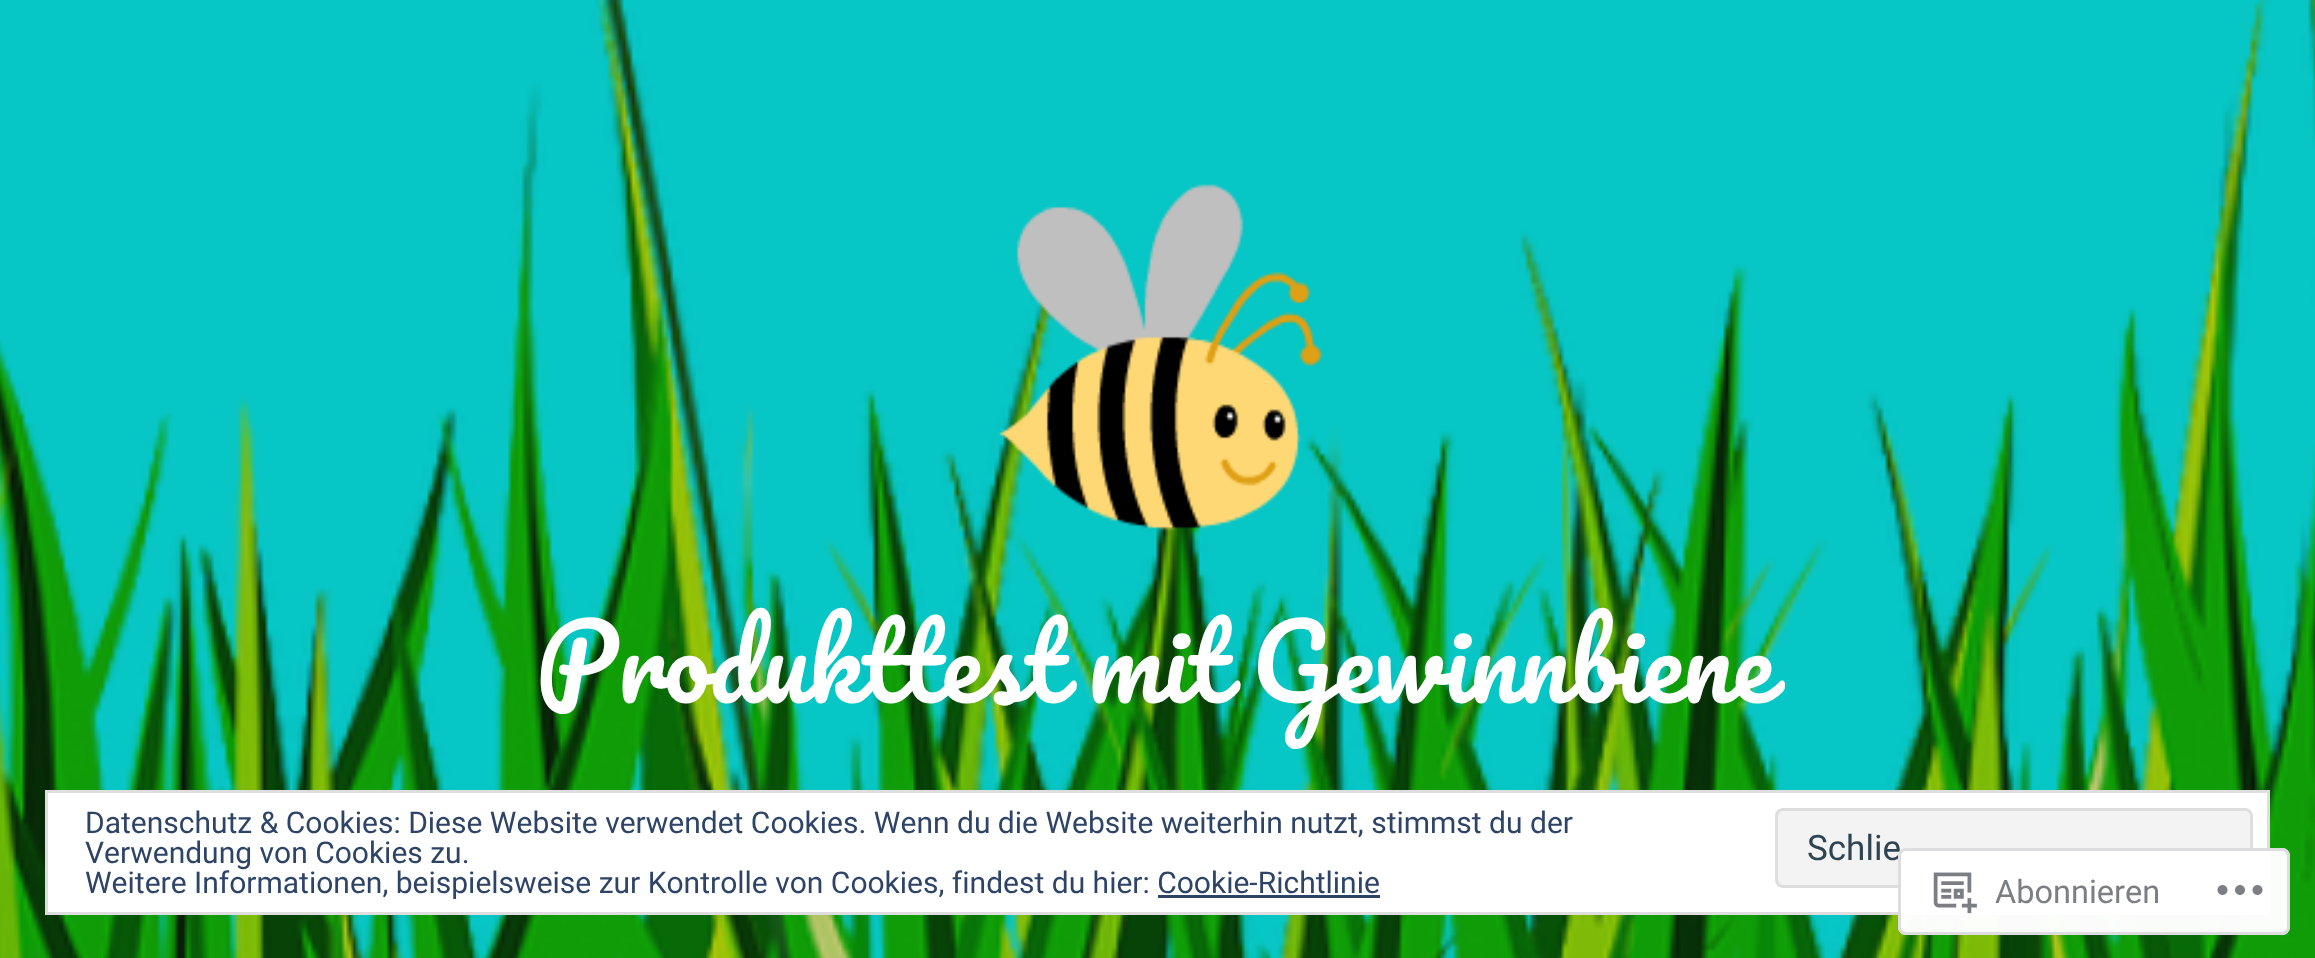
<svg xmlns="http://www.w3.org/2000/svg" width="2315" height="958">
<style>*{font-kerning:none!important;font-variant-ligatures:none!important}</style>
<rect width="100%" height="100%" fill="#fff"/>
<image x="0" y="0" width="2315" height="958" href="media/1.png"/>
<image x="999" y="184" width="325" height="347" href="media/2.png"/>
<text x="536" y="703" word-spacing="-3" style="font-family:Pacifico;font-size:101.25px;fill:#fff">Produkttest mit Gewinnbiene</text>
<rect x="46.5" y="791.5" width="2222" height="122" fill="#fff" stroke="#dedede" stroke-width="3"/>
<text x="85" y="833" style="font-family:Roboto;font-size:30px;fill:#2e4467">Datenschutz &amp; Cookies: Diese Website verwendet Cookies. Wenn du die Website weiterhin nutzt, stimmst du der</text>
<text x="85" y="863" style="font-family:Roboto;font-size:30px;fill:#2e4467">Verwendung von Cookies zu.</text>
<rect x="1776.5" y="809.5" width="475" height="77" rx="6.5" fill="#f3f3f3" stroke="#dedede" stroke-width="3"/>
<text x="1807" y="860" style="font-family:Roboto;font-size:35px;fill:#2e4453">Schlie</text>
<text x="85" y="893" style="font-family:Roboto;font-size:30px;fill:#2e4467">Weitere Informationen, beispielsweise zur Kontrolle von Cookies, findest du hier: Cookie-Richtlinie</text>
<rect x="1158" y="895" width="222" height="3" fill="#2e4467"/>
<rect x="1898" y="848" width="392" height="87" rx="8" fill="#fffffffa"/>
<rect x="1899.5" y="849.5" width="389" height="84" rx="6.5" fill="none" stroke="#dcdcdefa" stroke-width="3"/>
<image x="1933" y="872" width="44" height="42" href="media/3.png"/>
<text x="1995" y="903" style="font-family:Roboto;font-size:32.5px;fill:#7b7f84">Abonnieren</text>
<image x="2217" y="885" width="46" height="10" href="media/4.png"/>
</svg>
